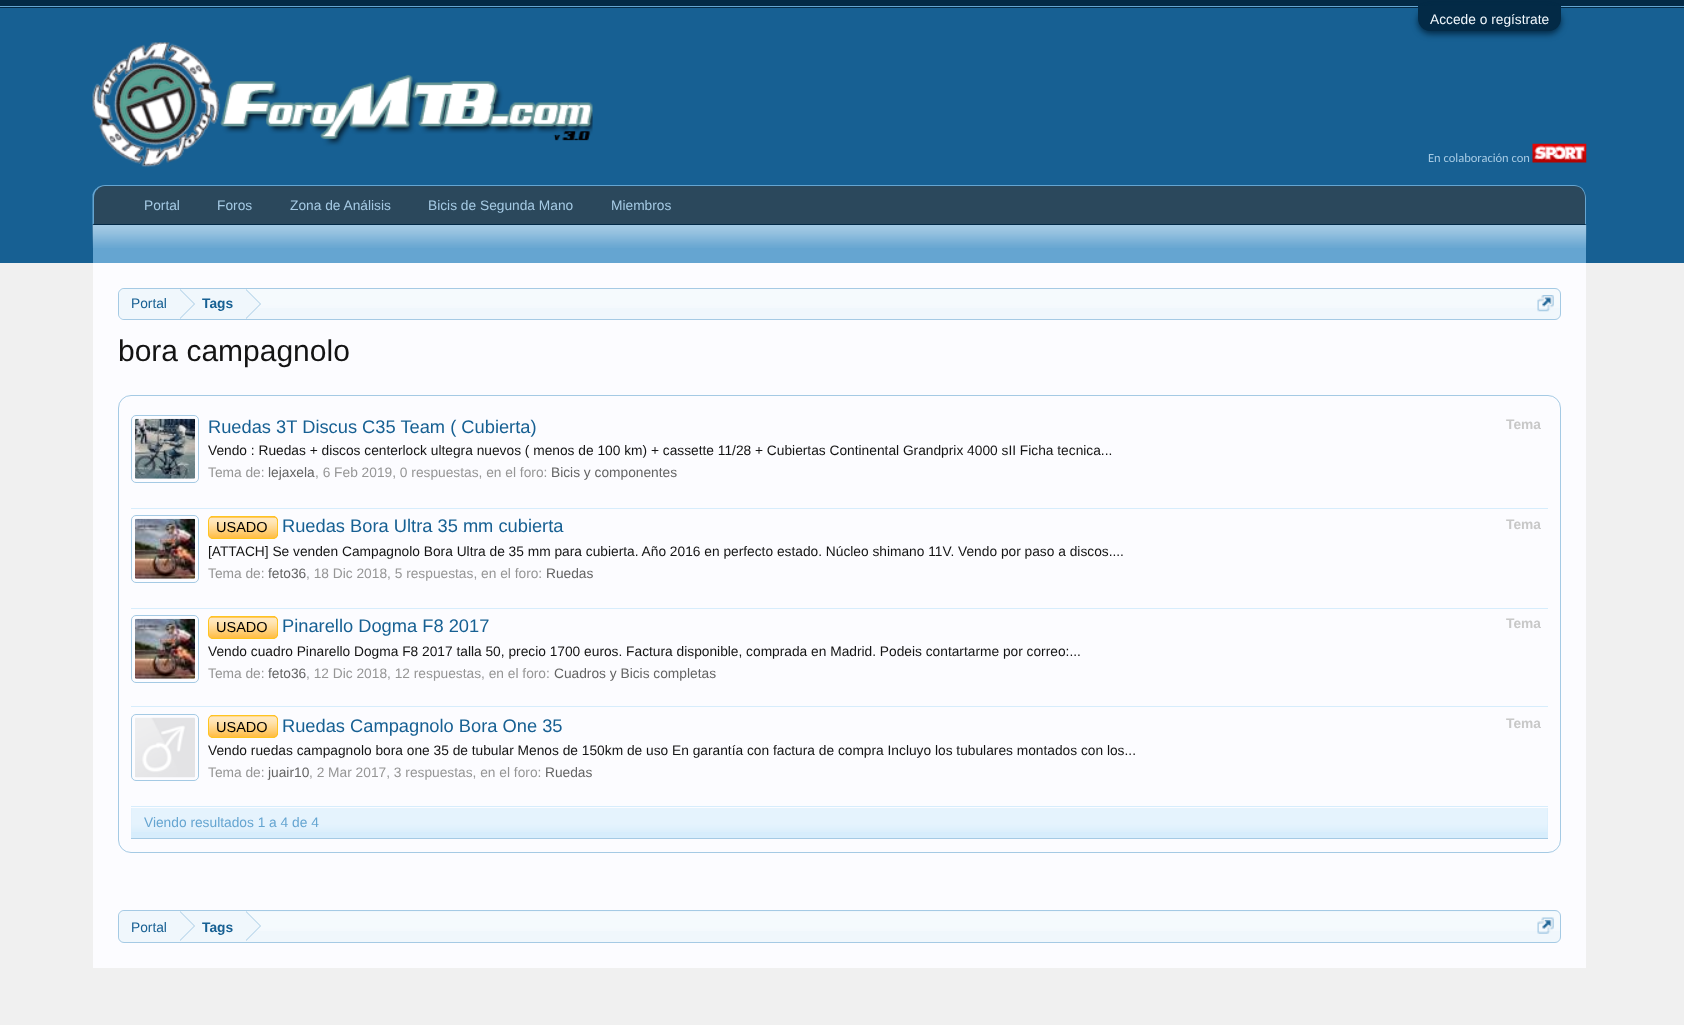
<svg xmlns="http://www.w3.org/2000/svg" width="1684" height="1025">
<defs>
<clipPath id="clip1"><rect x="119" y="289" width="1441" height="30" rx="5"/></clipPath>
<clipPath id="clip2"><rect x="119" y="911" width="1441" height="30" rx="5"/></clipPath>
</defs>
<rect width="100%" height="100%" fill="#f0f0f0"/>
<rect width="1684" height="8" fill="#032a46"/>
<rect y="6" width="1684" height="1" fill="#65a5d1"/>
<rect y="8" width="1684" height="255" fill="#176093"/>
<rect x="1418" y="9" width="143" height="25" rx="12.5" fill="#032a46" filter="blur(3px)"/>
<path d="M1418 6h143v12.5c0 7-5.5 12.5-12.5 12.5h-118c-7 0-12.5-5.5-12.5-12.5z" fill="#032a46"/>
<text x="1430" y="24" style="font-family:Liberation Sans;font-size:13.75px;fill:#f0f7fc">Accede o regístrate</text>
<image x="92" y="42" width="501" height="126" href="media/1.png"/>
<text x="1428" y="162" style="font-family:Carlito;font-size:12.5px;fill:#a5cae4">En colaboración con</text>
<image x="1532" y="143" width="55" height="20" href="media/2.png"/>
<path d="M106 185h1467c7 0 13 6 13 13v27h-1493v-27c0-7 6-13 13-13z" fill="#2b485c"/>
<path d="M105 185c-3 0-7 1-9 4l1 1c2-3 5-4 8-4h1469c3 0 6 1 8 3h1c-3-3-6-4-9-4z" fill="#65a5d1"/>
<path d="M1582.5 188.5c2 2.5 3.5 6 3.5 9.5v27l-1-1v-26c0-3.5-1-6.5-3-8.5z" fill="#65a5d1"/>
<path d="M92 225h1494l-1-1h-1491z" fill="#032a46"/>
<path d="M92.5 225v-30.5c.5-2 2-4.5 3.5-6l1 1c-2 2-3 5-3 8.5v25.5z" fill="#65a5d1"/>
<text x="144" y="210" style="font-family:Liberation Sans;font-size:13.75px;fill:#a5cae4">Portal</text>
<text x="217" y="210" style="font-family:Liberation Sans;font-size:13.75px;fill:#a5cae4">Foros</text>
<text x="290" y="210" style="font-family:Liberation Sans;font-size:13.75px;fill:#a5cae4">Zona de Análisis</text>
<text x="428" y="210" style="font-family:Liberation Sans;font-size:13.75px;fill:#a5cae4">Bicis de Segunda Mano</text>
<text x="611" y="210" style="font-family:Liberation Sans;font-size:13.75px;fill:#a5cae4">Miembros</text>
<rect x="93" y="225" width="1493" height="38" fill="#65a5d1"/>
<image x="92" y="225" width="1495" height="23" href="media/3.png"/>
<rect x="93" y="263" width="1493" height="705" fill="#fcfcff"/>
<rect x="118" y="288" width="1443" height="32" rx="6" fill="#f0f7fc"/>
<image x="118" y="289" width="1443" height="19" href="media/4.png"/>
<rect x="118.5" y="288.5" width="1442" height="31" rx="5.5" fill="none" stroke="#a5cae4"/>
<g clip-path="url(#clip1)">
<path d="M125 289h55v31h-55c-3.5 0-6-2.5-6-6v-19c0-3.5 2.5-6 6-6z" fill="#f0f7fc"/>
</g>
<text x="131" y="308" style="font-family:Liberation Sans;font-size:13.75px;fill:#176093">Portal</text>
<rect x="180" y="289" width="66" height="19" fill="#f0f7fc"/>
<path d="M180 319v-30l15 15z" fill="#a5cae4"/>
<path d="M179 319v-30l15 15z" fill="#f0f7fc"/>
<text x="202" y="308" style="font-family:Liberation Sans;font-size:13.75px;font-weight:bold;fill:#176093">Tags</text>
<path d="M246 319v-30l15 15z" fill="#a5cae4"/>
<path d="M245 319v-30l15 15z" fill="#f0f7fc"/>
<image x="1537" y="295" width="17" height="17" href="media/5.png"/>
<text x="118" y="361" style="font-family:Liberation Sans;font-size:30px;fill:#141414">bora campagnolo</text>
<rect x="118.5" y="395.5" width="1442" height="457" rx="12.5" fill="none" stroke="#a5cae4"/>
<rect x="131" y="508" width="1417" height="1" fill="#d7edfc"/>
<rect x="131.5" y="415.5" width="67" height="67" rx="4.5" fill="none" stroke="#a5cae4"/>
<image x="135" y="418" width="60" height="61" href="media/6.png"/>
<text x="208" y="433" style="font-family:Liberation Sans;font-size:18.3px;fill:#176093">Ruedas 3T Discus C35 Team ( Cubierta)</text>
<text x="1506" y="429" style="font-family:Liberation Sans;font-size:13.75px;font-weight:bold;fill:#c8c8c8">Tema</text>
<text x="208" y="455" style="font-family:Liberation Sans;font-size:13.75px;fill:#141414">Vendo : Ruedas + discos centerlock ultegra nuevos ( menos de 100 km) + cassette 11/28 + Cubiertas Continental Grandprix 4000 sII Ficha tecnica...</text>
<text x="208" y="477" style="font-family:Liberation Sans;font-size:13.75px;fill:#969696">Tema de:</text>
<text x="268" y="477" style="font-family:Liberation Sans;font-size:13.75px;fill:#646464">lejaxela</text>
<text x="315" y="477" style="font-family:Liberation Sans;font-size:13.75px;fill:#969696">, 6 Feb 2019, 0 respuestas, en el foro:</text>
<text x="551" y="477" style="font-family:Liberation Sans;font-size:13.75px;fill:#646464">Bicis y componentes</text>
<rect x="131" y="608" width="1417" height="1" fill="#d7edfc"/>
<rect x="131.5" y="515.5" width="67" height="67" rx="4.5" fill="none" stroke="#a5cae4"/>
<image x="135" y="518" width="60" height="61" href="media/7.png"/>
<rect x="208" y="516" width="70" height="23" rx="5" fill="#ffa500"/>
<image x="208" y="517" width="70" height="22" href="media/8.png"/>
<rect x="208.5" y="516.5" width="69" height="22" rx="4.5" fill="none" stroke="#ffc520"/>
<text x="216" y="532" style="font-family:Liberation Sans;font-size:14.5px;fill:#000">USADO</text>
<text x="282" y="532" style="font-family:Liberation Sans;font-size:18.3px;fill:#176093">Ruedas Bora Ultra 35 mm cubierta</text>
<text x="1506" y="529" style="font-family:Liberation Sans;font-size:13.75px;font-weight:bold;fill:#c8c8c8">Tema</text>
<text x="208" y="556" style="font-family:Liberation Sans;font-size:13.75px;fill:#141414">[ATTACH] Se venden Campagnolo Bora Ultra de 35 mm para cubierta. Año 2016 en perfecto estado. Núcleo shimano 11V. Vendo por paso a discos....</text>
<text x="208" y="578" style="font-family:Liberation Sans;font-size:13.75px;fill:#969696">Tema de:</text>
<text x="268" y="578" style="font-family:Liberation Sans;font-size:13.75px;fill:#646464">feto36</text>
<text x="306" y="578" style="font-family:Liberation Sans;font-size:13.75px;fill:#969696">, 18 Dic 2018, 5 respuestas, en el foro:</text>
<text x="546" y="578" style="font-family:Liberation Sans;font-size:13.75px;fill:#646464">Ruedas</text>
<rect x="131" y="706" width="1417" height="1" fill="#d7edfc"/>
<rect x="131.5" y="615.5" width="67" height="67" rx="4.5" fill="none" stroke="#a5cae4"/>
<image x="135" y="618" width="60" height="61" href="media/7.png"/>
<rect x="208" y="616" width="70" height="23" rx="5" fill="#ffa500"/>
<image x="208" y="617" width="70" height="22" href="media/9.png"/>
<rect x="208.5" y="616.5" width="69" height="22" rx="4.5" fill="none" stroke="#ffc520"/>
<text x="216" y="632" style="font-family:Liberation Sans;font-size:14.5px;fill:#000">USADO</text>
<text x="282" y="632" style="font-family:Liberation Sans;font-size:18.3px;fill:#176093">Pinarello Dogma F8 2017</text>
<text x="1506" y="628" style="font-family:Liberation Sans;font-size:13.75px;font-weight:bold;fill:#c8c8c8">Tema</text>
<text x="208" y="656" style="font-family:Liberation Sans;font-size:13.75px;fill:#141414">Vendo cuadro Pinarello Dogma F8 2017 talla 50, precio 1700 euros. Factura disponible, comprada en Madrid. Podeis contartarme por correo:...</text>
<text x="208" y="678" style="font-family:Liberation Sans;font-size:13.75px;fill:#969696">Tema de:</text>
<text x="268" y="678" style="font-family:Liberation Sans;font-size:13.75px;fill:#646464">feto36</text>
<text x="306" y="678" style="font-family:Liberation Sans;font-size:13.75px;fill:#969696">, 12 Dic 2018, 12 respuestas, en el foro:</text>
<text x="554" y="678" style="font-family:Liberation Sans;font-size:13.75px;fill:#646464">Cuadros y Bicis completas</text>
<rect x="131" y="806" width="1417" height="1" fill="#d7edfc"/>
<rect x="131.5" y="714.5" width="67" height="66" rx="4.5" fill="none" stroke="#a5cae4"/>
<image x="135" y="717" width="60" height="61" href="media/10.png"/>
<rect x="208" y="715" width="70" height="23" rx="5" fill="#ffa500"/>
<image x="208" y="716" width="70" height="22" href="media/11.png"/>
<rect x="208.5" y="715.5" width="69" height="22" rx="4.5" fill="none" stroke="#ffc520"/>
<text x="216" y="732" style="font-family:Liberation Sans;font-size:14.5px;fill:#000">USADO</text>
<text x="282" y="732" style="font-family:Liberation Sans;font-size:18.3px;fill:#176093">Ruedas Campagnolo Bora One 35</text>
<text x="1506" y="728" style="font-family:Liberation Sans;font-size:13.75px;font-weight:bold;fill:#c8c8c8">Tema</text>
<text x="208" y="755" style="font-family:Liberation Sans;font-size:13.75px;fill:#141414">Vendo ruedas campagnolo bora one 35 de tubular Menos de 150km de uso En garantía con factura de compra Incluyo los tubulares montados con los...</text>
<text x="208" y="777" style="font-family:Liberation Sans;font-size:13.75px;fill:#969696">Tema de:</text>
<text x="268" y="777" style="font-family:Liberation Sans;font-size:13.75px;fill:#646464">juair10</text>
<text x="309" y="777" style="font-family:Liberation Sans;font-size:13.75px;fill:#969696">, 2 Mar 2017, 3 respuestas, en el foro:</text>
<text x="545" y="777" style="font-family:Liberation Sans;font-size:13.75px;fill:#646464">Ruedas</text>
<rect x="131" y="808" width="1417" height="30" fill="#d7edfc"/>
<image x="131" y="808" width="1417" height="24" href="media/12.png"/>
<rect x="131" y="838" width="1417" height="1" fill="#a5cae4"/>
<text x="144" y="827" style="font-family:Liberation Sans;font-size:13.75px;fill:#65a5d1">Viendo resultados 1 a 4 de 4</text>
<rect x="118" y="910" width="1443" height="33" rx="6" fill="#f0f7fc"/>
<image x="118" y="912" width="1443" height="19" href="media/13.png"/>
<rect x="118.5" y="910.5" width="1442" height="32" rx="5.5" fill="none" stroke="#a5cae4"/>
<g clip-path="url(#clip2)">
<path d="M125 911h55v32h-55c-3.5 0-6-2.5-6-6v-20c0-3.5 2.5-6 6-6z" fill="#f0f7fc"/>
</g>
<text x="131" y="932" style="font-family:Liberation Sans;font-size:13.75px;fill:#176093">Portal</text>
<rect x="180" y="912" width="66" height="19" fill="#f0f7fc"/>
<path d="M180 941v-30l15 15z" fill="#a5cae4"/>
<path d="M179 941v-30l15 15z" fill="#f0f7fc"/>
<text x="202" y="932" style="font-family:Liberation Sans;font-size:13.75px;font-weight:bold;fill:#176093">Tags</text>
<path d="M246 941v-30l15 15z" fill="#a5cae4"/>
<path d="M245 941v-30l15 15z" fill="#f0f7fc"/>
<image x="1537" y="917" width="17" height="17" href="media/14.png"/>
</svg>
